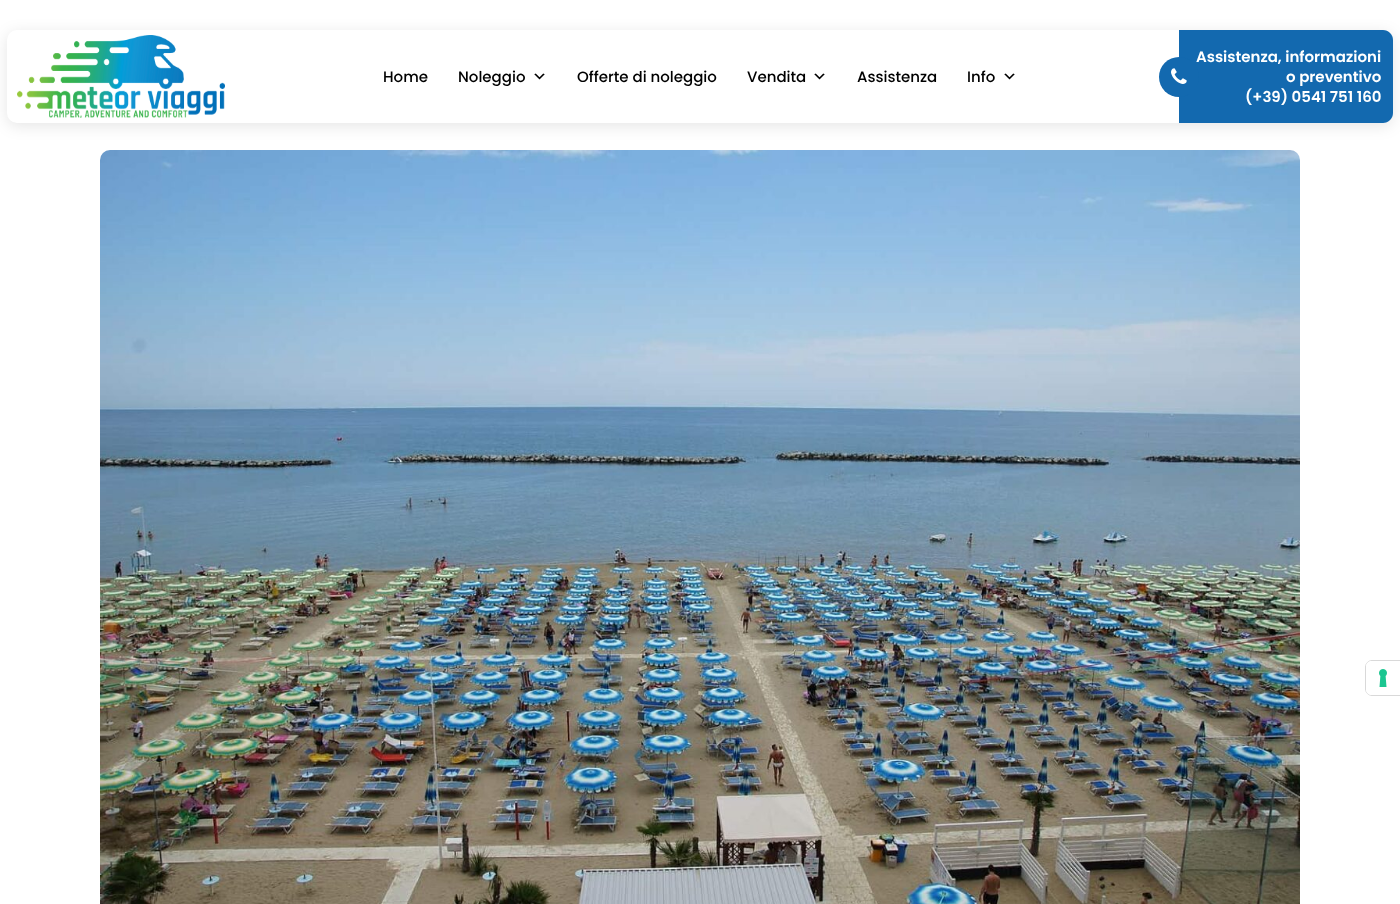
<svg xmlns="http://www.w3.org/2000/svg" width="1400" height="904">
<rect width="100%" height="100%" fill="#fff"/>
<rect x="7" y="33" width="1386" height="93" rx="10" fill="#0000001a" filter="blur(7.5px)"/>
<rect x="7" y="30" width="1386" height="93" rx="10" fill="#fff"/>
<image x="17" y="35" width="208" height="83" href="media/1.png"/>
<text x="383" y="82" style="font-family:Poppins;font-size:15px;font-weight:500;fill:#000">Home</text>
<text x="458" y="82" style="font-family:Poppins;font-size:15px;font-weight:500;fill:#000">Noleggio</text>
<image x="534" y="73" width="11" height="7" href="media/2.png"/>
<text x="577" y="82" style="font-family:Poppins;font-size:15px;font-weight:500;fill:#000">Offerte di noleggio</text>
<text x="747" y="82" style="font-family:Poppins;font-size:15px;font-weight:500;fill:#000">Vendita</text>
<image x="814" y="73" width="11" height="7" href="media/2.png"/>
<text x="857" y="82" style="font-family:Poppins;font-size:15px;font-weight:500;fill:#000">Assistenza</text>
<text x="967" y="82" style="font-family:Poppins;font-size:15px;font-weight:500;fill:#000">Info</text>
<image x="1004" y="73" width="11" height="7" href="media/2.png"/>
<path d="M1179 30h204c5.5 0 10 4.5 10 10v73c0 5.5-4.5 10-10 10h-204z" fill="#1369af"/>
<text x="1196" y="62" style="font-family:Poppins;font-size:15px;font-weight:600;fill:#fff">Assistenza, informazioni</text>
<circle cx="1179" cy="77" r="20" fill="#1369af"/>
<image x="1171" y="68" width="16" height="16" href="media/3.png"/>
<text x="1286" y="82" style="font-family:Poppins;font-size:15px;font-weight:600;fill:#fff">o preventivo</text>
<text x="1245" y="102" style="font-family:Poppins;font-size:15px;font-weight:600;fill:#fff">(+39) 0541 751 160</text>
<image x="100" y="150" width="1200" height="754" href="media/4.png"/>
<path d="M1372 660.5h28.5v35h-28.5c-3.5 0-6.5-3-6.5-6.5v-22c0-3.5 3-6.5 6.5-6.5z" fill="none" stroke="#d9d9d9"/>
<path d="M1372 661h28v34h-28c-3.5 0-6-2.5-6-6v-22c0-3.5 2.5-6 6-6z" fill="#fff"/>
<image x="1379" y="669" width="8" height="18" href="media/5.png"/>
</svg>
